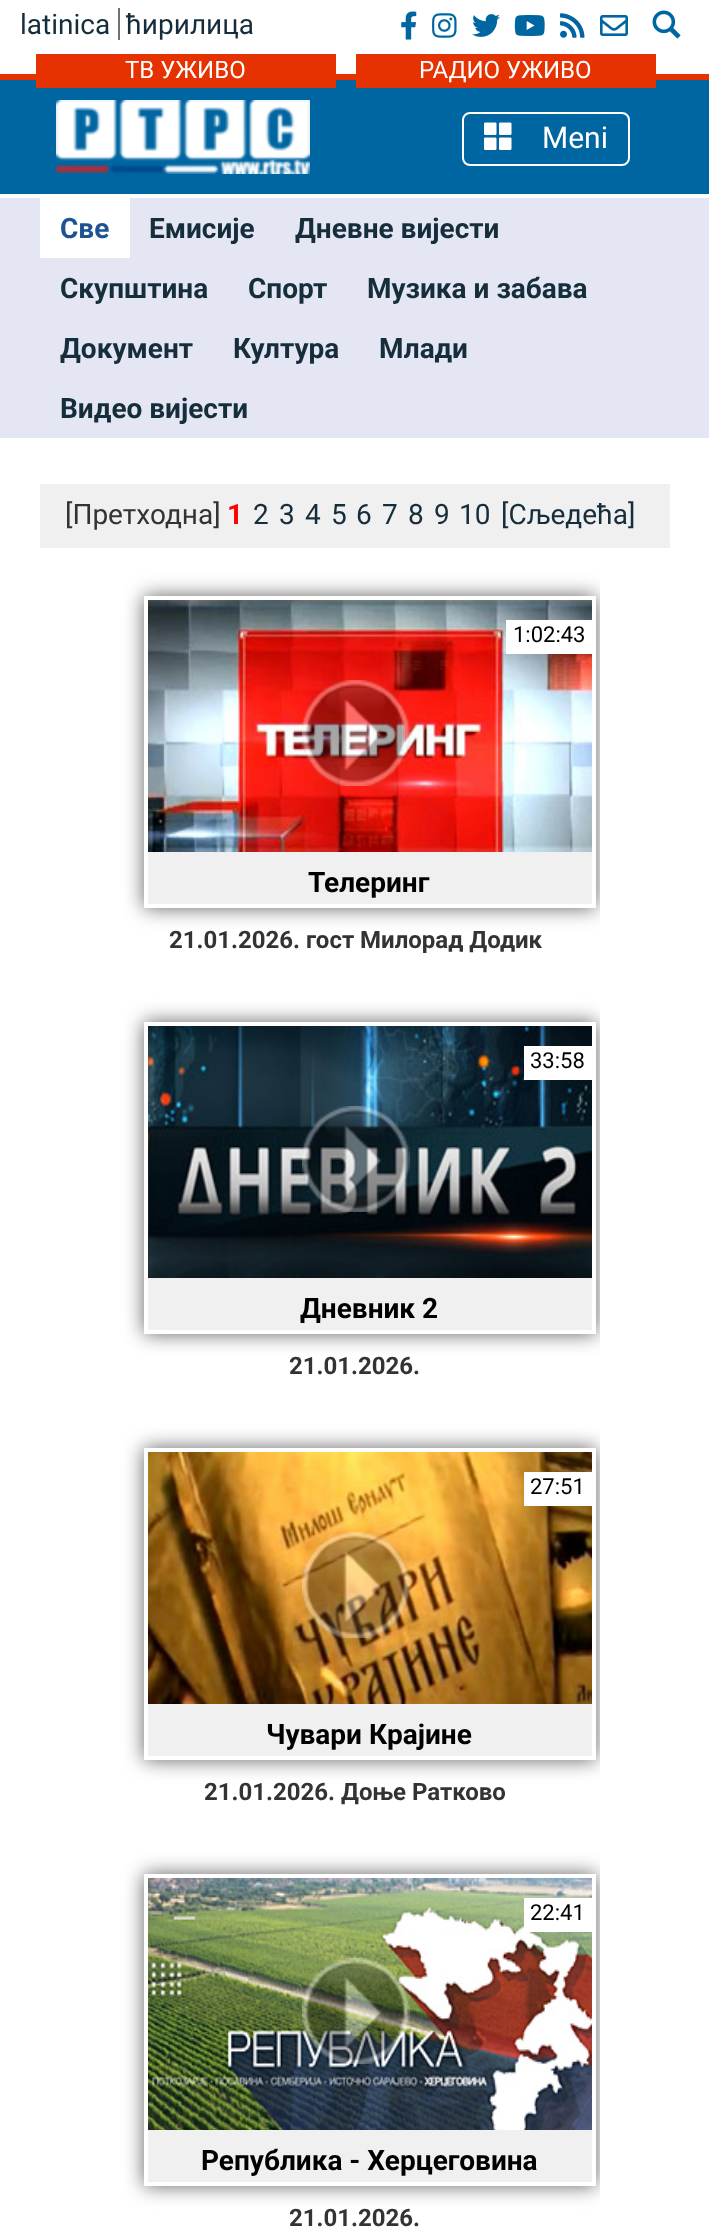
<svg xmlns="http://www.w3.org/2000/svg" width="709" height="2232">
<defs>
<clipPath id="clip1"><rect x="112" y="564" width="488" height="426"/></clipPath>
<clipPath id="clip2"><path d="M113 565h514v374h-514zm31 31h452v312h-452z" clip-rule="evenodd"/></clipPath>
<clipPath id="clip3"><rect x="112" y="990" width="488" height="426"/></clipPath>
<clipPath id="clip4"><path d="M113 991h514v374h-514zm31 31h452v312h-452z" clip-rule="evenodd"/></clipPath>
<clipPath id="clip5"><rect x="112" y="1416" width="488" height="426"/></clipPath>
<clipPath id="clip6"><path d="M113 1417h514v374h-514zm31 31h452v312h-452z" clip-rule="evenodd"/></clipPath>
<clipPath id="clip7"><rect x="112" y="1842" width="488" height="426"/></clipPath>
<clipPath id="clip8"><path d="M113 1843h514v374h-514zm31 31h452v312h-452z" clip-rule="evenodd"/></clipPath>
</defs>
<rect width="100%" height="100%" fill="#fff"/>
<rect y="80" width="709" height="114" fill="#0066a1"/>
<text x="20" y="34" style="font-family:Roboto;font-size:28px;fill:#162d3b">latinica</text>
<rect x="118" y="8" width="2" height="32" fill="#727272"/>
<text x="126" y="34" style="font-family:Roboto;font-size:28px;fill:#162d3b">ћирилица</text>
<image x="401" y="11" width="16" height="29" href="media/1.png"/>
<image x="432" y="13" width="25" height="25" href="media/2.png"/>
<image x="472" y="14" width="28" height="23" href="media/3.png"/>
<image x="514" y="15" width="31" height="21" href="media/4.png"/>
<image x="560" y="13" width="25" height="25" href="media/5.png"/>
<image x="600" y="15" width="28" height="21" href="media/6.png"/>
<image x="652" y="10" width="29" height="29" href="media/7.png"/>
<rect y="74" width="709" height="6" fill="#e63200"/>
<rect x="36" y="54" width="300" height="34" fill="#e63200"/>
<text x="125" y="78" style="font-family:Roboto;font-size:24px;fill:#fff">ТВ УЖИВО</text>
<rect x="356" y="54" width="300" height="34" fill="#e63200"/>
<text x="419" y="78" style="font-family:Roboto;font-size:24px;fill:#fff">РАДИО УЖИВО</text>
<image x="56" y="100" width="254" height="74" href="media/8.png"/>
<rect x="463" y="113" width="166" height="52" rx="7" fill="none" stroke="#fff" stroke-width="2"/>
<image x="484" y="122" width="28" height="28" href="media/9.png"/>
<text x="542" y="148" style="font-family:Roboto;font-size:30px;fill:#fff">Meni</text>
<rect y="198" width="709" height="240" fill="#e4e6f3"/>
<rect x="40" y="198" width="90" height="60" fill="#fff"/>
<text x="60" y="238" style="font-family:Roboto;font-size:28px;font-weight:bold;fill:#1d5393">Све</text>
<text x="149" y="238" style="font-family:Roboto;font-size:28px;font-weight:bold;fill:#162d3b">Емисије</text>
<text x="295" y="238" style="font-family:Roboto;font-size:28px;font-weight:bold;fill:#162d3b">Дневне вијести</text>
<text x="60" y="298" style="font-family:Roboto;font-size:28px;font-weight:bold;fill:#162d3b">Скупштина</text>
<text x="248" y="298" style="font-family:Roboto;font-size:28px;font-weight:bold;fill:#162d3b">Спорт</text>
<text x="367" y="298" style="font-family:Roboto;font-size:28px;font-weight:bold;fill:#162d3b">Музика и забава</text>
<text x="60" y="358" style="font-family:Roboto;font-size:28px;font-weight:bold;fill:#162d3b">Документ</text>
<text x="233" y="358" style="font-family:Roboto;font-size:28px;font-weight:bold;fill:#162d3b">Култура</text>
<text x="379" y="358" style="font-family:Roboto;font-size:28px;font-weight:bold;fill:#162d3b">Млади</text>
<text x="60" y="418" style="font-family:Roboto;font-size:28px;font-weight:bold;fill:#162d3b">Видео вијести</text>
<rect x="40" y="484" width="630" height="64" fill="#f0f0f0"/>
<text x="65" y="524" style="font-family:Roboto;font-size:28px;fill:#333">[Претходна]</text>
<text x="227" y="524" style="font-family:Roboto;font-size:28px;font-weight:bold;fill:#f00">1</text>
<text x="253" y="524" style="font-family:Roboto;font-size:28px;fill:#162d3b">2</text>
<text x="279" y="524" style="font-family:Roboto;font-size:28px;fill:#162d3b">3</text>
<text x="305" y="524" style="font-family:Roboto;font-size:28px;fill:#162d3b">4</text>
<text x="331" y="524" style="font-family:Roboto;font-size:28px;fill:#162d3b">5</text>
<text x="356" y="524" style="font-family:Roboto;font-size:28px;fill:#162d3b">6</text>
<text x="382" y="524" style="font-family:Roboto;font-size:28px;fill:#162d3b">7</text>
<text x="408" y="524" style="font-family:Roboto;font-size:28px;fill:#162d3b">8</text>
<text x="434" y="524" style="font-family:Roboto;font-size:28px;fill:#162d3b">9</text>
<text x="459" y="524" style="font-family:Roboto;font-size:28px;fill:#162d3b">10</text>
<text x="501" y="524" style="font-family:Roboto;font-size:28px;fill:#162d3b">[Сљедећа]</text>
<g clip-path="url(#clip1)">
<g clip-path="url(#clip2)">
<rect x="144" y="596" width="452" height="312" fill="#626262" filter="blur(10px)"/>
</g>
</g>
<image x="148" y="600" width="444" height="252" href="media/10.png"/>
<rect x="506" y="620" width="86" height="34" fill="#fff"/>
<text x="513" y="642" style="font-family:Roboto;font-size:22px;fill:#000">1:02:43</text>
<image x="302" y="680" width="108" height="106" href="media/11.png"/>
<rect x="148" y="852" width="444" height="52" fill="#f0f0f0"/>
<text x="308" y="892" style="font-family:Roboto;font-size:28px;font-weight:bold;fill:#000">Телеринг</text>
<text x="169" y="948" style="font-family:Roboto;font-size:24px;font-weight:bold;fill:#333">21.01.2026. гост Милорад Додик</text>
<g clip-path="url(#clip3)">
<g clip-path="url(#clip4)">
<rect x="144" y="1022" width="452" height="312" fill="#626262" filter="blur(10px)"/>
</g>
</g>
<image x="148" y="1026" width="444" height="252" href="media/12.png"/>
<rect x="524" y="1046" width="68" height="34" fill="#fff"/>
<text x="530" y="1068" style="font-family:Roboto;font-size:22px;fill:#000">33:58</text>
<image x="302" y="1106" width="108" height="106" href="media/13.png"/>
<rect x="148" y="1278" width="444" height="52" fill="#f0f0f0"/>
<text x="300" y="1318" style="font-family:Roboto;font-size:28px;font-weight:bold;fill:#000">Дневник 2</text>
<text x="289" y="1374" style="font-family:Roboto;font-size:24px;font-weight:bold;fill:#333">21.01.2026.</text>
<g clip-path="url(#clip5)">
<g clip-path="url(#clip6)">
<rect x="144" y="1448" width="452" height="312" fill="#626262" filter="blur(10px)"/>
</g>
</g>
<image x="148" y="1452" width="444" height="252" href="media/14.png"/>
<rect x="524" y="1472" width="68" height="34" fill="#fff"/>
<text x="530" y="1494" style="font-family:Roboto;font-size:22px;fill:#000">27:51</text>
<image x="302" y="1532" width="108" height="106" href="media/15.png"/>
<rect x="148" y="1704" width="444" height="52" fill="#f0f0f0"/>
<text x="266" y="1744" style="font-family:Roboto;font-size:28px;font-weight:bold;fill:#000">Чувари Крајине</text>
<text x="204" y="1800" style="font-family:Roboto;font-size:24px;font-weight:bold;fill:#333">21.01.2026. Доње Ратково</text>
<g clip-path="url(#clip7)">
<g clip-path="url(#clip8)">
<rect x="144" y="1874" width="452" height="312" fill="#626262" filter="blur(10px)"/>
</g>
</g>
<image x="148" y="1878" width="444" height="252" href="media/16.png"/>
<rect x="524" y="1898" width="68" height="34" fill="#fff"/>
<text x="530" y="1920" style="font-family:Roboto;font-size:22px;fill:#000">22:41</text>
<image x="302" y="1958" width="108" height="106" href="media/17.png"/>
<rect x="148" y="2130" width="444" height="52" fill="#f0f0f0"/>
<text x="201" y="2170" style="font-family:Roboto;font-size:28px;font-weight:bold;fill:#000">Република - Херцеговинa</text>
<text x="289" y="2226" style="font-family:Roboto;font-size:24px;font-weight:bold;fill:#333">21.01.2026.</text>
</svg>
